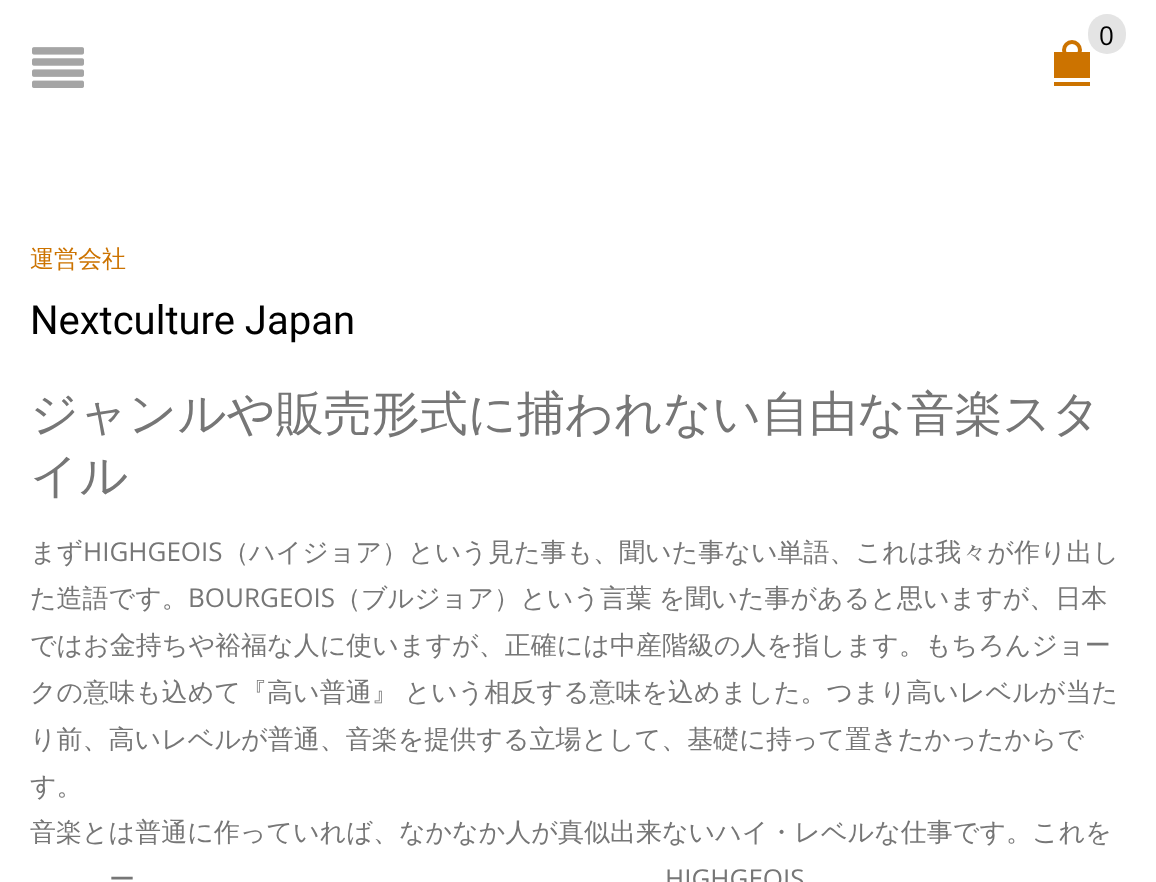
<svg xmlns="http://www.w3.org/2000/svg" width="1156" height="882">
<rect width="100%" height="100%" fill="#fff"/>
<rect x="1054" y="52" width="36" height="26" fill="#cc7300"/>
<rect x="1088" y="14" width="38" height="40" rx="19" fill="#e4e4e4"/>
<text x="1099" y="45" style="font-family:Open Sans;font-size:26px;fill:#000">0</text>
<circle cx="1072" cy="50" r="8" fill="none" stroke="#cc7300" stroke-width="4"/>
<rect x="1054" y="82" width="36" height="4" fill="#cc7300"/>
<image x="32" y="47" width="52" height="41" href="media/1.png"/>
<text x="30" y="267" style="font-family:WenQuanYi Zen Hei;font-size:24px;font-weight:500;fill:#cc7300">運営会社</text>
<text x="30" y="334" style="font-family:Roboto;font-size:40px;fill:#000">Nextculture Japan</text>
<text x="30" y="430" style="font-family:WenQuanYi Zen Hei;font-size:48px;font-weight:500;fill:#767676">ジャンルや販売形式に捕われない自由な音楽スタ</text>
<text x="30" y="492" style="font-family:WenQuanYi Zen Hei;font-size:48px;font-weight:500;fill:#767676">イル</text>
<text x="30" y="561" style="font-family:WenQuanYi Zen Hei;font-size:26px;font-weight:500;fill:#767676">まず</text>
<text x="83" y="561" style="font-family:Open Sans;font-size:26px;fill:#767676">HIGHGEOIS</text>
<text x="223" y="561" style="font-family:WenQuanYi Zen Hei;font-size:26px;font-weight:500;fill:#767676">（ハイジョア）という見た事も、聞いた事ない単語、これは我々が作り出し</text>
<text x="30" y="607" style="font-family:WenQuanYi Zen Hei;font-size:26px;font-weight:500;fill:#767676">た造語です。</text>
<text x="188" y="607" style="font-family:Open Sans;font-size:26px;fill:#767676">BOURGEOIS</text>
<text x="335" y="607" word-spacing="-1" style="font-family:WenQuanYi Zen Hei;font-size:26px;font-weight:500;fill:#767676">（ブルジョア）という言葉 を聞いた事があると思いますが、日本</text>
<text x="30" y="654" style="font-family:WenQuanYi Zen Hei;font-size:26px;font-weight:500;fill:#767676">ではお金持ちや裕福な人に使いますが、正確には中産階級の人を指します。もちろんジョー</text>
<text x="30" y="701" word-spacing="-1" style="font-family:WenQuanYi Zen Hei;font-size:26px;font-weight:500;fill:#767676">クの意味も込めて『高い普通』 という相反する意味を込めました。つまり高いレベルが当た</text>
<text x="30" y="748" style="font-family:WenQuanYi Zen Hei;font-size:26px;font-weight:500;fill:#767676">り前、高いレベルが普通、音楽を提供する立場として、基礎に持って置きたかったからで</text>
<text x="30" y="795" style="font-family:WenQuanYi Zen Hei;font-size:26px;font-weight:500;fill:#767676">す。</text>
<text x="30" y="841" style="font-family:WenQuanYi Zen Hei;font-size:26px;font-weight:500;fill:#767676">音楽とは普通に作っていれば、なかなか人が真似出来ないハイ・レベルな仕事です。これを</text>
<text x="109" y="888" style="font-family:WenQuanYi Zen Hei;font-size:26px;font-weight:500;fill:#767676">ー</text>
<text x="665" y="888" style="font-family:Open Sans;font-size:26px;fill:#767676">HIGHGEOIS</text>
</svg>
